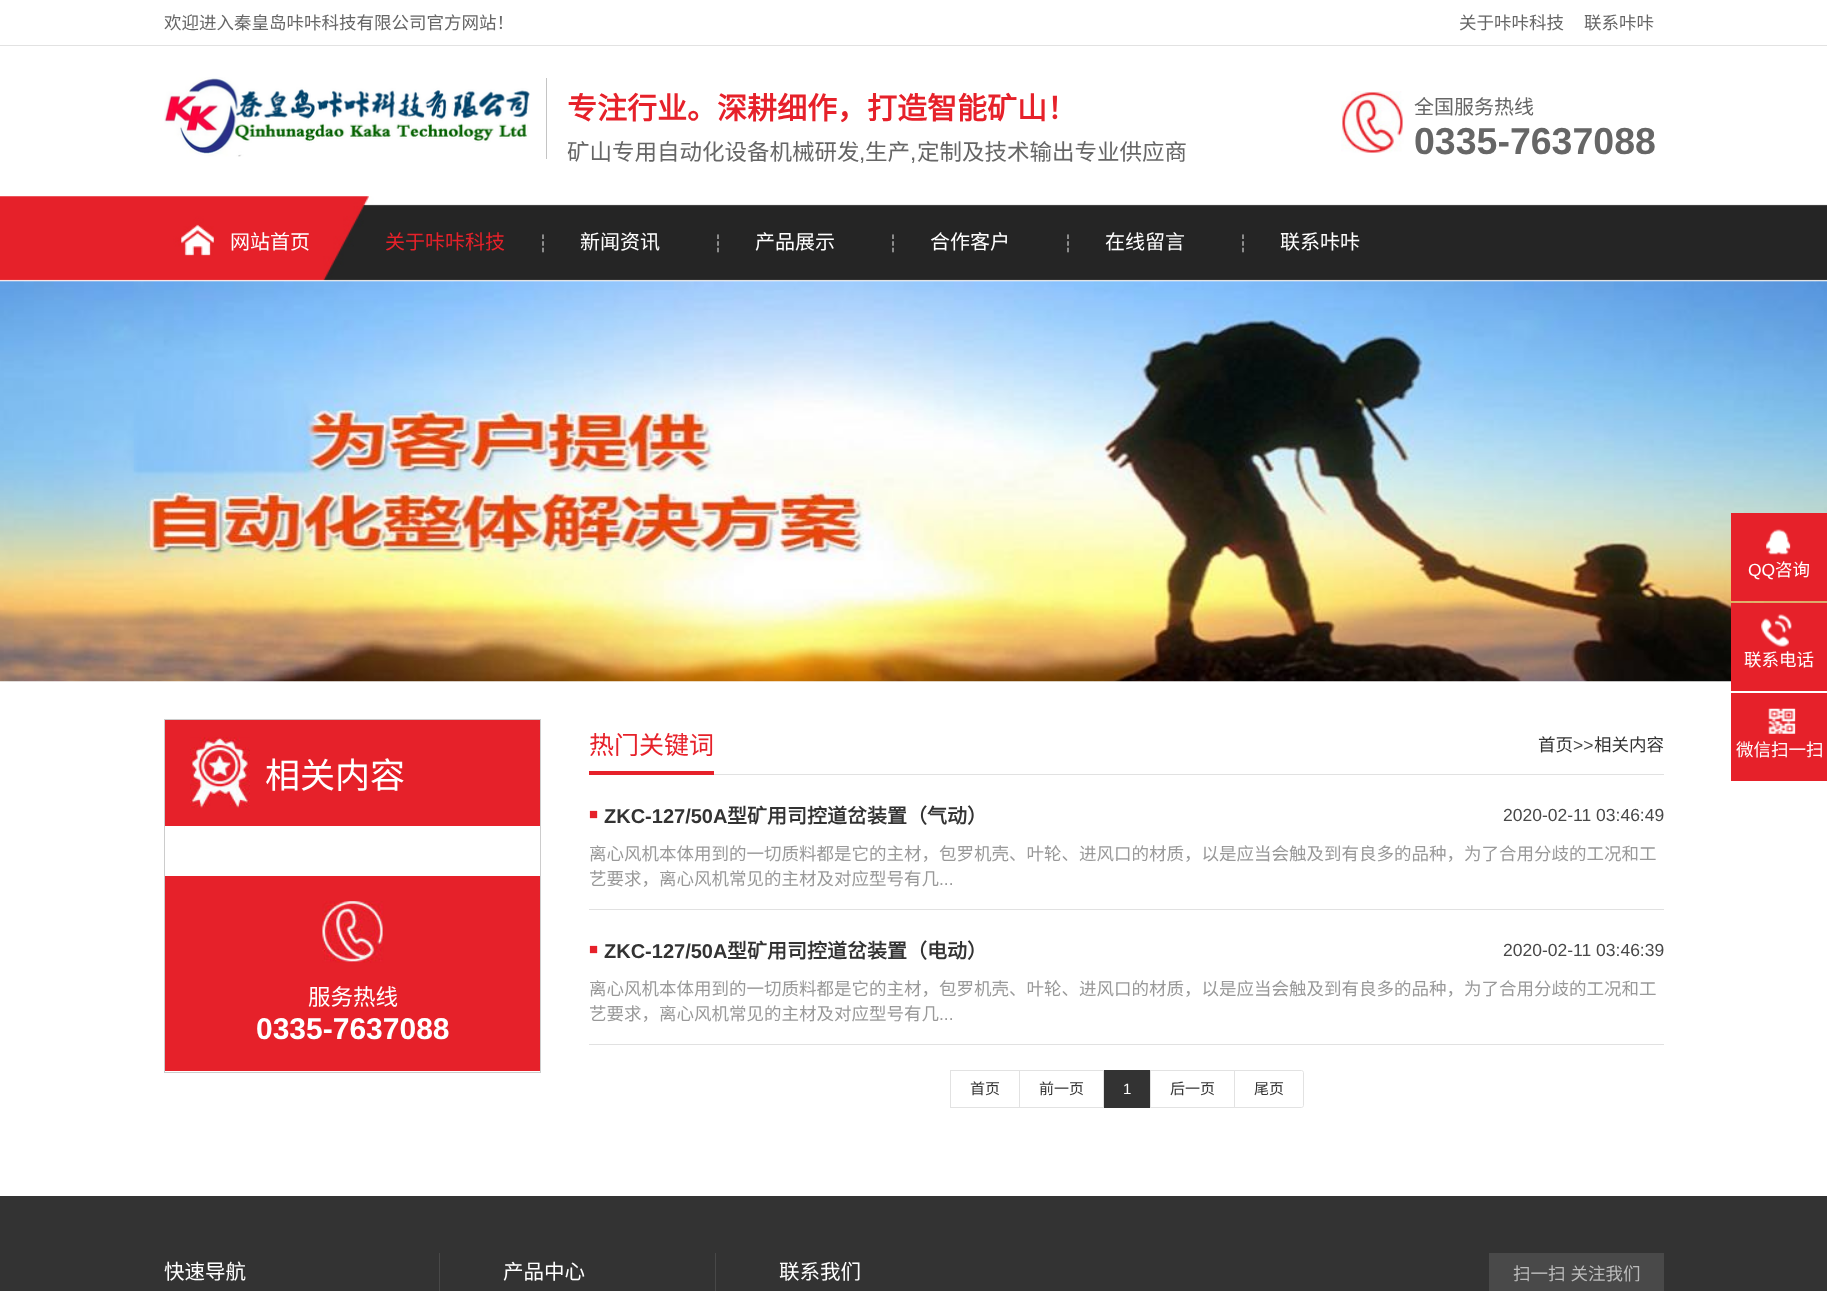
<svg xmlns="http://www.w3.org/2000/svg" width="1827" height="1291">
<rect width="100%" height="100%" fill="#fff"/>
<rect y="45" width="1827" height="1" fill="#e2e2e2"/>
<text x="164" y="29" style="font-family:Noto Sans CJK SC;font-size:17.5px;fill:#666">欢迎进入秦皇岛咔咔科技有限公司官方网站！</text>
<text x="1459" y="29" style="font-family:Noto Sans CJK SC;font-size:17.5px;fill:#666">关于咔咔科技</text>
<text x="1584" y="29" style="font-family:Noto Sans CJK SC;font-size:17.5px;fill:#666">联系咔咔</text>
<image x="164" y="77" width="366" height="80" href="media/1.png"/>
<rect x="546" y="78" width="1" height="81" fill="#c4c4c4"/>
<text x="567" y="119" style="font-family:Noto Sans CJK SC;font-size:30px;font-weight:bold;fill:#e6212a">专注行业。深耕细作，打造智能矿山！</text>
<text x="567" y="160" style="font-family:Noto Sans CJK SC;font-size:22.5px;fill:#666">矿山专用自动化设备机械研发</text>
<text x="859" y="160" style="font-family:Liberation Sans;font-size:22.5px;fill:#666">,</text>
<text x="865" y="160" style="font-family:Noto Sans CJK SC;font-size:22.5px;fill:#666">生产</text>
<text x="910" y="160" style="font-family:Liberation Sans;font-size:22.5px;fill:#666">,</text>
<text x="917" y="160" style="font-family:Noto Sans CJK SC;font-size:22.5px;fill:#666">定制及技术输出专业供应商</text>
<image x="1341" y="91" width="63" height="62" href="media/2.png"/>
<text x="1414" y="114" style="font-family:Noto Sans CJK SC;font-size:20px;fill:#666">全国服务热线</text>
<text x="1414" y="154" style="font-family:Liberation Sans;font-size:37.5px;font-weight:bold;fill:#666">0335-7637088</text>
<image x="0" y="196" width="1827" height="85" href="media/3.png"/>
<text x="230" y="249" style="font-family:Noto Sans CJK SC;font-size:20px;fill:#fff">网站首页</text>
<text x="385" y="249" style="font-family:Noto Sans CJK SC;font-size:20px;fill:#e6212a">关于咔咔科技</text>
<text x="533" y="251" style="font-family:Noto Sans CJK SC;font-size:20px;fill:#fff">┆</text>
<text x="580" y="249" style="font-family:Noto Sans CJK SC;font-size:20px;fill:#fff">新闻资讯</text>
<text x="708" y="251" style="font-family:Noto Sans CJK SC;font-size:20px;fill:#fff">┆</text>
<text x="755" y="249" style="font-family:Noto Sans CJK SC;font-size:20px;fill:#fff">产品展示</text>
<text x="883" y="251" style="font-family:Noto Sans CJK SC;font-size:20px;fill:#fff">┆</text>
<text x="930" y="249" style="font-family:Noto Sans CJK SC;font-size:20px;fill:#fff">合作客户</text>
<text x="1058" y="251" style="font-family:Noto Sans CJK SC;font-size:20px;fill:#fff">┆</text>
<text x="1105" y="249" style="font-family:Noto Sans CJK SC;font-size:20px;fill:#fff">在线留言</text>
<text x="1233" y="251" style="font-family:Noto Sans CJK SC;font-size:20px;fill:#fff">┆</text>
<text x="1280" y="249" style="font-family:Noto Sans CJK SC;font-size:20px;fill:#fff">联系咔咔</text>
<image x="0" y="281" width="1827" height="401" href="media/4.png"/>
<rect x="1731" y="513" width="96" height="88" fill="#e6212a"/>
<image x="1766" y="529" width="25" height="26" href="media/5.png"/>
<text x="1748" y="576" style="font-family:Liberation Sans;font-size:17.5px;fill:#fff">QQ</text>
<text x="1775" y="576" style="font-family:Noto Sans CJK SC;font-size:17.5px;fill:#fff">咨询</text>
<rect x="1731" y="603" width="96" height="88" fill="#e6212a"/>
<image x="1761" y="614" width="31" height="33" href="media/6.png"/>
<text x="1744" y="666" style="font-family:Noto Sans CJK SC;font-size:17.5px;fill:#fff">联系电话</text>
<rect x="1731" y="693" width="96" height="88" fill="#e6212a"/>
<image x="1768" y="708" width="28" height="26" href="media/7.png"/>
<text x="1736" y="756" style="font-family:Noto Sans CJK SC;font-size:17.5px;fill:#fff">微信扫一扫</text>
<rect x="164.5" y="719.5" width="376" height="353" fill="none" stroke="#ccc"/>
<rect x="165" y="720" width="375" height="106" fill="#e6212a"/>
<image x="190" y="737" width="60" height="71" href="media/8.png"/>
<text x="265" y="788" style="font-family:Noto Sans CJK SC;font-size:35px;fill:#fff">相关内容</text>
<rect x="165" y="876" width="375" height="195" fill="#e6212a"/>
<image x="322" y="901" width="62" height="62" href="media/9.png"/>
<text x="308" y="1005" style="font-family:Noto Sans CJK SC;font-size:22.5px;fill:#fff">服务热线</text>
<text x="256" y="1039" style="font-family:Liberation Sans;font-size:30px;font-weight:bold;fill:#fff">0335-7637088</text>
<rect x="714" y="774" width="950" height="1" fill="#e1e1e1"/>
<text x="589" y="754" style="font-family:Noto Sans CJK SC;font-size:25px;fill:#e6212a">热门关键词</text>
<rect x="589" y="771" width="125" height="4" fill="#e6212a"/>
<text x="1538" y="751" style="font-family:Noto Sans CJK SC;font-size:17.5px;fill:#333">首页</text>
<text x="1573" y="751" style="font-family:Liberation Sans;font-size:17.5px;fill:#484848">&gt;&gt;</text>
<text x="1594" y="751" style="font-family:Noto Sans CJK SC;font-size:17.5px;fill:#333">相关内容</text>
<rect x="589" y="909" width="1075" height="1" fill="#e1e1e1"/>
<text x="589" y="819" style="font-family:Liberation Sans;font-size:15px;fill:#e6212a">■</text>
<text x="604" y="823" style="font-family:Liberation Sans;font-size:20px;font-weight:bold;fill:#333">ZKC-127/50A</text>
<text x="727" y="823" style="font-family:Noto Sans CJK SC;font-size:20px;font-weight:bold;fill:#333">型矿用司控道岔装置（气动）</text>
<text x="1503" y="821" style="font-family:Liberation Sans;font-size:17.5px;fill:#484848">2020-02-11 03:46:49</text>
<text x="589" y="860" style="font-family:Noto Sans CJK SC;font-size:17.5px;fill:#999">离心风机本体用到的一切质料都是它的主材，包罗机壳、叶轮、进风口的材质，以是应当会触及到有良多的品种，为了合用分歧的工况和工</text>
<text x="589" y="885" style="font-family:Noto Sans CJK SC;font-size:17.5px;fill:#999">艺要求，离心风机常见的主材及对应型号有几</text>
<text x="939" y="885" style="font-family:Liberation Sans;font-size:17.5px;fill:#999">...</text>
<rect x="589" y="1044" width="1075" height="1" fill="#e1e1e1"/>
<text x="589" y="954" style="font-family:Liberation Sans;font-size:15px;fill:#e6212a">■</text>
<text x="604" y="958" style="font-family:Liberation Sans;font-size:20px;font-weight:bold;fill:#333">ZKC-127/50A</text>
<text x="727" y="958" style="font-family:Noto Sans CJK SC;font-size:20px;font-weight:bold;fill:#333">型矿用司控道岔装置（电动）</text>
<text x="1503" y="956" style="font-family:Liberation Sans;font-size:17.5px;fill:#484848">2020-02-11 03:46:39</text>
<text x="589" y="995" style="font-family:Noto Sans CJK SC;font-size:17.5px;fill:#999">离心风机本体用到的一切质料都是它的主材，包罗机壳、叶轮、进风口的材质，以是应当会触及到有良多的品种，为了合用分歧的工况和工</text>
<text x="589" y="1020" style="font-family:Noto Sans CJK SC;font-size:17.5px;fill:#999">艺要求，离心风机常见的主材及对应型号有几</text>
<text x="939" y="1020" style="font-family:Liberation Sans;font-size:17.5px;fill:#999">...</text>
<rect x="950.5" y="1070.5" width="69" height="37" fill="none" stroke="#e2e2e2"/>
<text x="970" y="1094" style="font-family:Noto Sans CJK SC;font-size:15px;fill:#333">首页</text>
<rect x="1019.5" y="1070.5" width="84" height="37" fill="none" stroke="#e2e2e2"/>
<text x="1039" y="1094" style="font-family:Noto Sans CJK SC;font-size:15px;fill:#333">前一页</text>
<rect x="1104" y="1070" width="46" height="38" fill="#333"/>
<text x="1123" y="1094" style="font-family:Liberation Sans;font-size:15px;fill:#fff">1</text>
<rect x="1150.5" y="1070.5" width="84" height="37" fill="none" stroke="#e2e2e2"/>
<text x="1170" y="1094" style="font-family:Noto Sans CJK SC;font-size:15px;fill:#333">后一页</text>
<path d="M1234.5 1070.5h67c1 0 2 1 2 2v33c0 1-1 2-2 2h-67z" fill="#fff" stroke="#e2e2e2"/>
<text x="1254" y="1094" style="font-family:Noto Sans CJK SC;font-size:15px;fill:#333">尾页</text>
<rect y="1196" width="1827" height="95" fill="#333"/>
<text x="164" y="1279" style="font-family:Noto Sans CJK SC;font-size:20.5px;fill:#fff">快速导航</text>
<rect x="715" y="1253" width="1" height="38" fill="#484848"/>
<rect x="439" y="1253" width="1" height="38" fill="#484848"/>
<text x="503" y="1279" style="font-family:Noto Sans CJK SC;font-size:20.5px;fill:#fff">产品中心</text>
<text x="779" y="1279" style="font-family:Noto Sans CJK SC;font-size:20.5px;fill:#fff">联系我们</text>
<rect x="1489" y="1253" width="175" height="38" fill="#494949"/>
<text x="1513" y="1280" word-spacing="1" style="font-family:Noto Sans CJK SC;font-size:17.5px;fill:#bbb">扫一扫 关注我们</text>
</svg>
